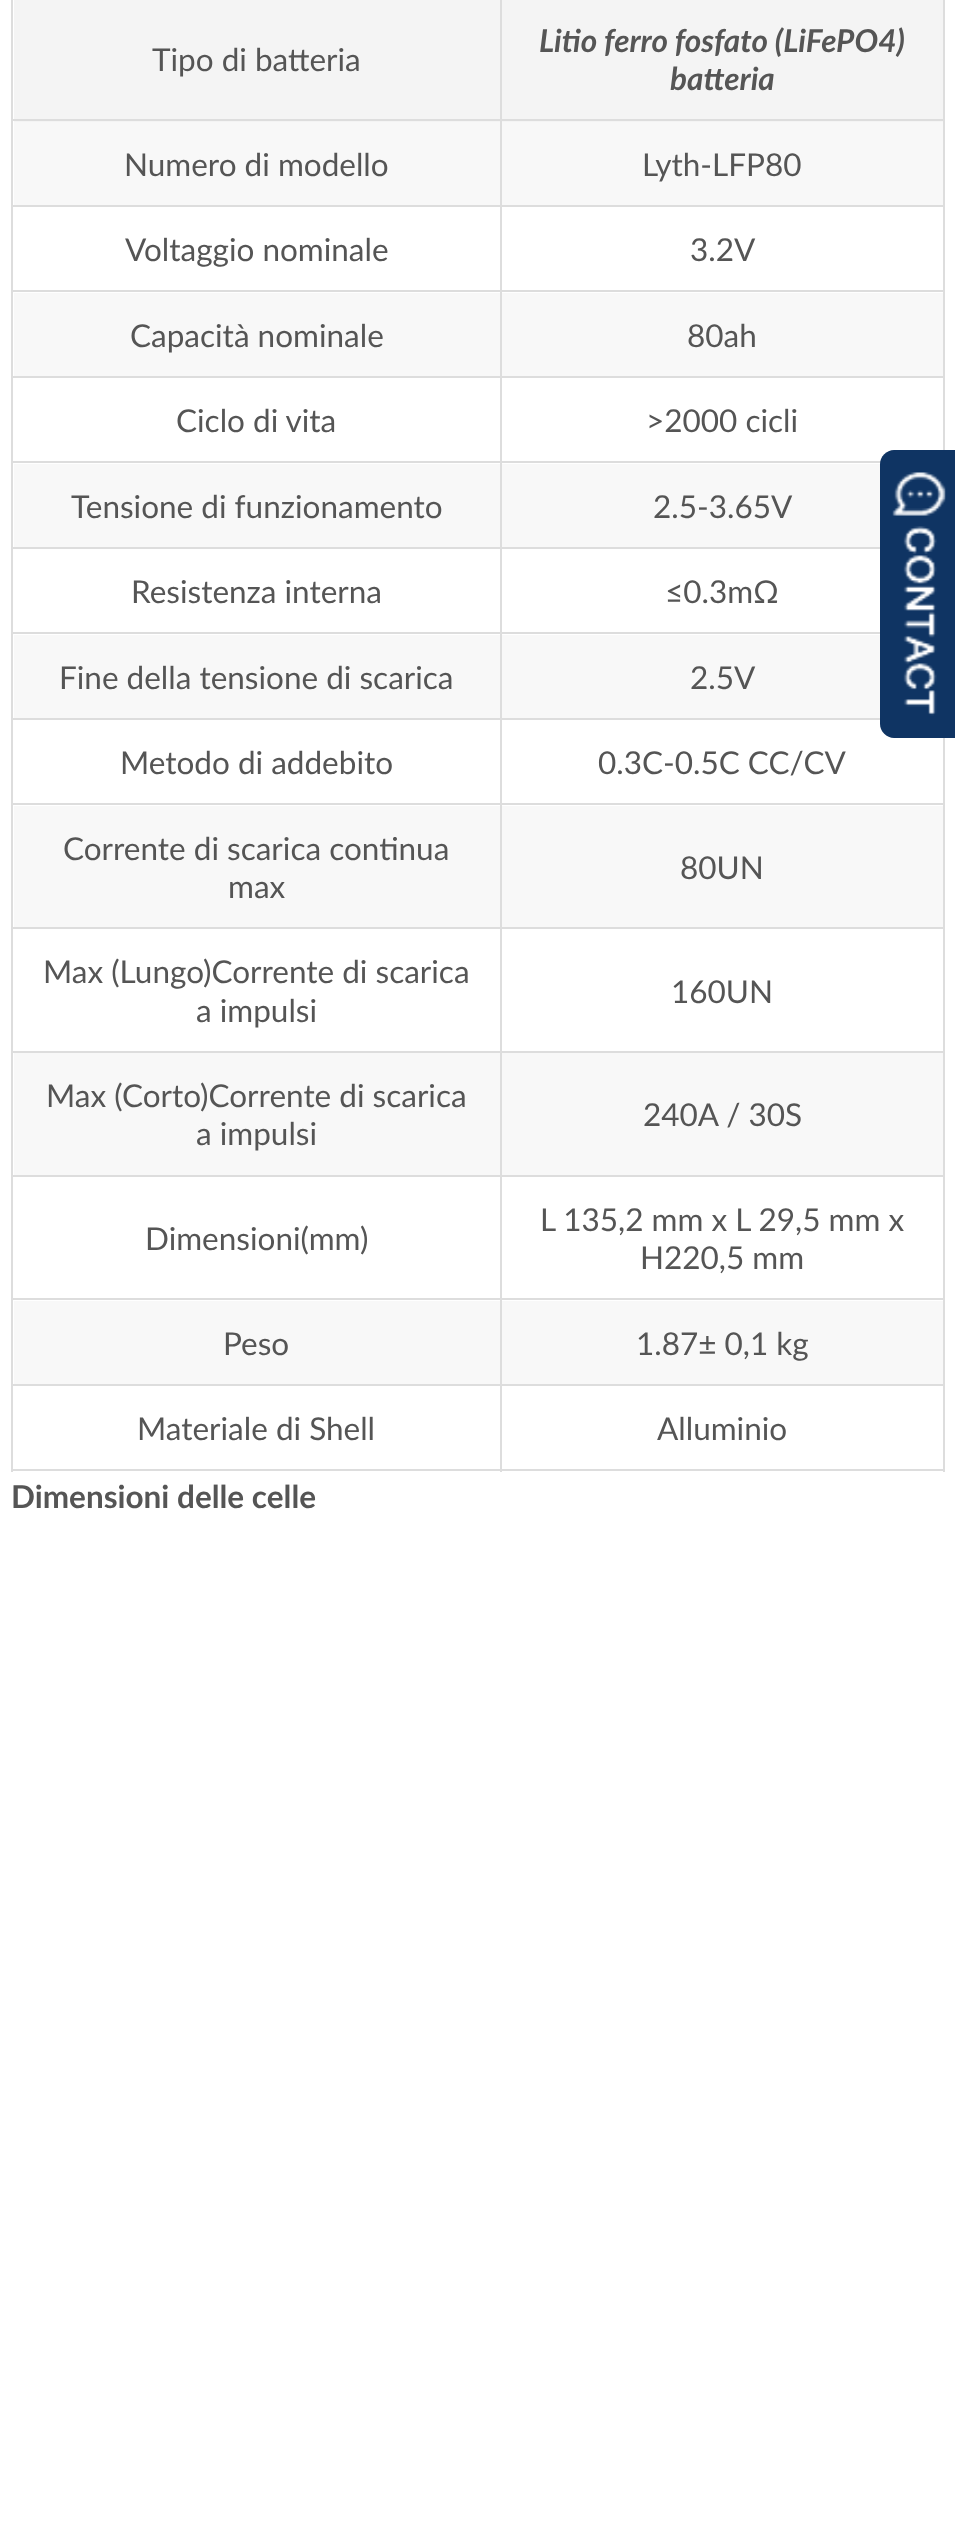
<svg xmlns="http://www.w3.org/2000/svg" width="955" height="2521">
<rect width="100%" height="100%" fill="#fff"/>
<rect x="14" width="929" height="122" fill="#f4f4f4"/>
<text x="152" y="71" style="font-family:Lato;font-size:31.5px;fill:#555">Tipo di batteria</text>
<text x="539" y="52" style="font-family:Lato;font-size:31.5px;font-weight:bold;font-style:italic;fill:#555">Litio ferro fosfato (LiFePO4)</text>
<text x="670" y="90" style="font-family:Lato;font-size:31.5px;font-weight:bold;font-style:italic;fill:#555">batteria</text>
<rect x="14" y="122" width="929" height="83" fill="#f8f8f8"/>
<rect x="11" y="119" width="934" height="2" fill="#ddd"/>
<rect x="11" y="205" width="934" height="2" fill="#ddd"/>
<rect x="11" y="290" width="934" height="2" fill="#ddd"/>
<rect x="11" y="376" width="934" height="2" fill="#ddd"/>
<rect x="943" y="376" width="2" height="74" fill="#ddd"/>
<rect x="943" y="290" width="2" height="88" fill="#ddd"/>
<rect x="943" y="205" width="2" height="88" fill="#ddd"/>
<rect x="943" width="2" height="207" fill="#ddd"/>
<rect x="11" y="461" width="870" height="2" fill="#ddd"/>
<rect x="11" y="547" width="869" height="2" fill="#ddd"/>
<rect x="11" y="632" width="869" height="2" fill="#ddd"/>
<rect x="11" y="718" width="869" height="2" fill="#ddd"/>
<rect x="11" y="803" width="934" height="2" fill="#ddd"/>
<rect x="11" y="927" width="934" height="2" fill="#ddd"/>
<rect x="11" y="1051" width="934" height="2" fill="#ddd"/>
<rect x="11" y="1175" width="934" height="2" fill="#ddd"/>
<rect x="11" y="1298" width="934" height="2" fill="#ddd"/>
<rect x="11" y="1384" width="934" height="2" fill="#ddd"/>
<rect x="943" y="1384" width="2" height="88" fill="#ddd"/>
<rect x="11" y="1469" width="934" height="2" fill="#ddd"/>
<rect x="11" y="1384" width="2" height="88" fill="#ddd"/>
<rect x="11" y="1298" width="2" height="88" fill="#ddd"/>
<rect x="11" y="1175" width="2" height="126" fill="#ddd"/>
<rect x="11" y="1051" width="2" height="126" fill="#ddd"/>
<rect x="11" y="927" width="2" height="126" fill="#ddd"/>
<rect x="11" y="803" width="2" height="126" fill="#ddd"/>
<rect x="11" y="718" width="2" height="88" fill="#ddd"/>
<rect x="11" y="632" width="2" height="88" fill="#ddd"/>
<rect x="11" y="547" width="2" height="88" fill="#ddd"/>
<rect x="11" y="461" width="2" height="88" fill="#ddd"/>
<rect x="11" y="376" width="2" height="88" fill="#ddd"/>
<rect x="11" y="290" width="2" height="88" fill="#ddd"/>
<rect x="11" y="205" width="2" height="88" fill="#ddd"/>
<rect x="11" width="2" height="207" fill="#ddd"/>
<text x="124" y="176" style="font-family:Lato;font-size:31.5px;fill:#555">Numero di modello</text>
<text x="642" y="176" style="font-family:Lato;font-size:31.5px;fill:#555">Lyth-LFP80</text>
<text x="125" y="261" style="font-family:Lato;font-size:31.5px;fill:#555">Voltaggio nominale</text>
<text x="690" y="261" style="font-family:Lato;font-size:31.5px;fill:#555">3.2V</text>
<rect x="14" y="293" width="929" height="83" fill="#f8f8f8"/>
<text x="130" y="347" style="font-family:Lato;font-size:31.5px;fill:#555">Capacità nominale</text>
<text x="687" y="347" style="font-family:Lato;font-size:31.5px;fill:#555">80ah</text>
<text x="176" y="432" style="font-family:Lato;font-size:31.5px;fill:#555">Ciclo di vita</text>
<text x="646" y="432" style="font-family:Lato;font-size:31.5px;fill:#555">&gt;2000 cicli</text>
<rect x="14" y="464" width="866" height="83" fill="#f8f8f8"/>
<text x="71" y="518" style="font-family:Lato;font-size:31.5px;fill:#555">Tensione di funzionamento</text>
<text x="653" y="518" style="font-family:Lato;font-size:31.5px;fill:#555">2.5-3.65V</text>
<text x="131" y="603" style="font-family:Lato;font-size:31.5px;fill:#555">Resistenza interna</text>
<text x="665" y="603" style="font-family:Lato;font-size:31.5px;fill:#555">≤0.3mΩ</text>
<rect x="14" y="635" width="866" height="83" fill="#f8f8f8"/>
<text x="59" y="689" style="font-family:Lato;font-size:31.5px;fill:#555">Fine della tensione di scarica</text>
<text x="690" y="689" style="font-family:Lato;font-size:31.5px;fill:#555">2.5V</text>
<text x="120" y="774" style="font-family:Lato;font-size:31.5px;fill:#555">Metodo di addebito</text>
<text x="598" y="774" style="font-family:Lato;font-size:31.5px;fill:#555">0.3C-0.5C CC/CV</text>
<rect x="14" y="806" width="929" height="121" fill="#f8f8f8"/>
<rect x="943" y="1298" width="2" height="88" fill="#ddd"/>
<rect x="943" y="1175" width="2" height="126" fill="#ddd"/>
<rect x="943" y="1051" width="2" height="126" fill="#ddd"/>
<rect x="943" y="927" width="2" height="126" fill="#ddd"/>
<rect x="943" y="738" width="2" height="191" fill="#ddd"/>
<text x="63" y="860" style="font-family:Lato;font-size:31.5px;fill:#555">Corrente di scarica continua</text>
<text x="228" y="898" style="font-family:Lato;font-size:31.5px;fill:#555">max</text>
<text x="680" y="879" style="font-family:Lato;font-size:31.5px;fill:#555">80UN</text>
<text x="43" y="983" style="font-family:Lato;font-size:31.5px;fill:#555">Max (Lungo)Corrente di scarica</text>
<text x="196" y="1022" style="font-family:Lato;font-size:31.5px;fill:#555">a impulsi</text>
<text x="671" y="1003" style="font-family:Lato;font-size:31.5px;fill:#555">160UN</text>
<rect x="14" y="1053" width="929" height="122" fill="#f8f8f8"/>
<text x="46" y="1107" style="font-family:Lato;font-size:31.5px;fill:#555">Max (Corto)Corrente di scarica</text>
<text x="196" y="1145" style="font-family:Lato;font-size:31.5px;fill:#555">a impulsi</text>
<text x="643" y="1126" style="font-family:Lato;font-size:31.5px;fill:#555">240A / 30S</text>
<text x="145" y="1250" style="font-family:Lato;font-size:31.5px;fill:#555">Dimensioni(mm)</text>
<text x="540" y="1231" style="font-family:Lato;font-size:31.5px;fill:#555">L 135,2 mm x L 29,5 mm x</text>
<text x="640" y="1269" style="font-family:Lato;font-size:31.5px;fill:#555">H220,5 mm</text>
<rect x="14" y="1301" width="929" height="83" fill="#f8f8f8"/>
<text x="223" y="1355" style="font-family:Lato;font-size:31.5px;fill:#555">Peso</text>
<text x="636" y="1355" style="font-family:Lato;font-size:31.5px;fill:#555">1.87± 0,1 kg</text>
<text x="137" y="1440" style="font-family:Lato;font-size:31.5px;fill:#555">Materiale di Shell</text>
<rect x="500" width="2" height="1472" fill="#ddd"/>
<text x="657" y="1440" style="font-family:Lato;font-size:31.5px;fill:#555">Alluminio</text>
<text x="11" y="1508" style="font-family:Lato;font-size:31.5px;font-weight:bold;fill:#555">Dimensioni delle celle</text>
<path d="M894 450h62v288h-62c-7.5 0-14-6.5-14-14v-260c0-7.5 6.5-14 14-14z" fill="#0f3463"/>
<image x="892" y="472" width="54" height="244" href="media/1.png"/>
</svg>
